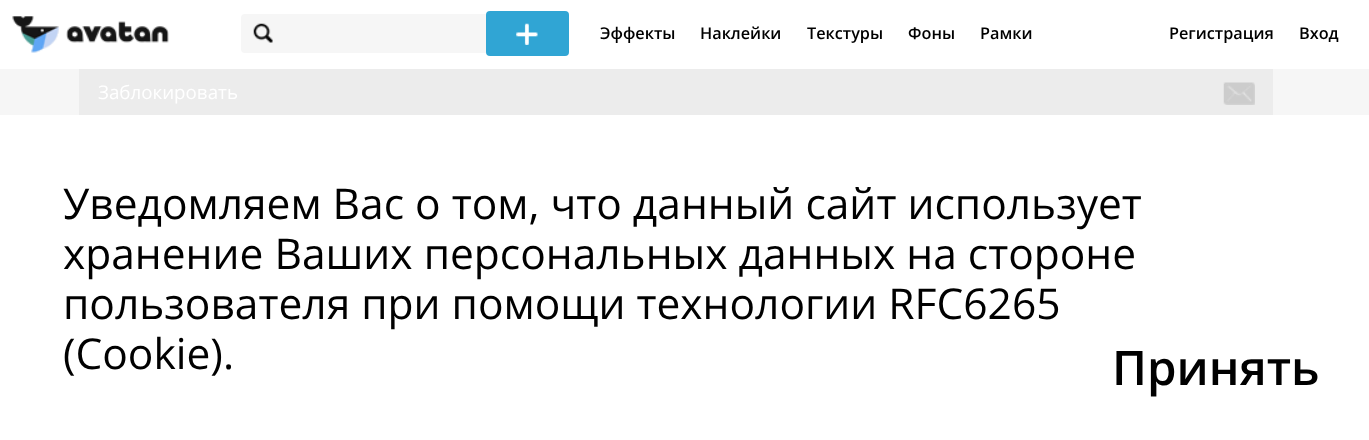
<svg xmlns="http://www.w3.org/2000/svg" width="1369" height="440">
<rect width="100%" height="100%" fill="#f6f6f6"/>
<rect x="79" y="69" width="1194" height="46" fill="#ececec"/>
<rect width="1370" height="69" fill="#0000004d" filter="blur(0.5px)"/>
<rect width="1369" height="69" fill="#fff"/>
<image x="12" y="16" width="157" height="37" href="media/1.png"/>
<rect x="241" y="14" width="290" height="39" rx="4" fill="#f6f6f6"/>
<image x="253" y="23" width="20" height="20" href="media/2.png"/>
<rect x="486" y="11" width="83" height="45" rx="4" fill="#30a5d4"/>
<image x="516" y="23" width="22" height="22" href="media/3.png"/>
<text x="600" y="39" style="font-family:Open Sans;font-size:16.25px;font-weight:600;fill:#000">Эффекты</text>
<text x="700" y="39" style="font-family:Open Sans;font-size:16.25px;font-weight:600;fill:#000">Наклейки</text>
<text x="807" y="39" style="font-family:Open Sans;font-size:16.25px;font-weight:600;fill:#000">Текстуры</text>
<text x="908" y="39" style="font-family:Open Sans;font-size:16.25px;font-weight:600;fill:#000">Фоны</text>
<text x="980" y="39" style="font-family:Open Sans;font-size:16.25px;font-weight:600;fill:#000">Рамки</text>
<text x="1169" y="39" style="font-family:Open Sans;font-size:16.25px;font-weight:600;fill:#000">Регистрация</text>
<text x="1299" y="39" style="font-family:Open Sans;font-size:16.25px;font-weight:600;fill:#000">Вход</text>
<text x="98" y="99" style="font-family:Open Sans;font-size:18.75px;fill:#fff">Заблокировать</text>
<image x="1223" y="82" width="32" height="23" href="media/4.png"/>
<rect y="115" width="1369" height="325" fill="#fff"/>
<text x="63" y="219" style="font-family:Open Sans;font-size:42.5px;fill:#000">Уведомляем Вас о том, что данный сайт использует</text>
<text x="63" y="269" style="font-family:Open Sans;font-size:42.5px;fill:#000">хранение Ваших персональных данных на стороне</text>
<text x="63" y="319" style="font-family:Open Sans;font-size:42.5px;fill:#000">пользователя при помощи технологии RFC6265</text>
<text x="63" y="369" style="font-family:Open Sans;font-size:42.5px;fill:#000">(Cookie).</text>
<text x="1112" y="385" style="font-family:Open Sans;font-size:47.5px;font-weight:600;fill:#000">Принять</text>
</svg>
